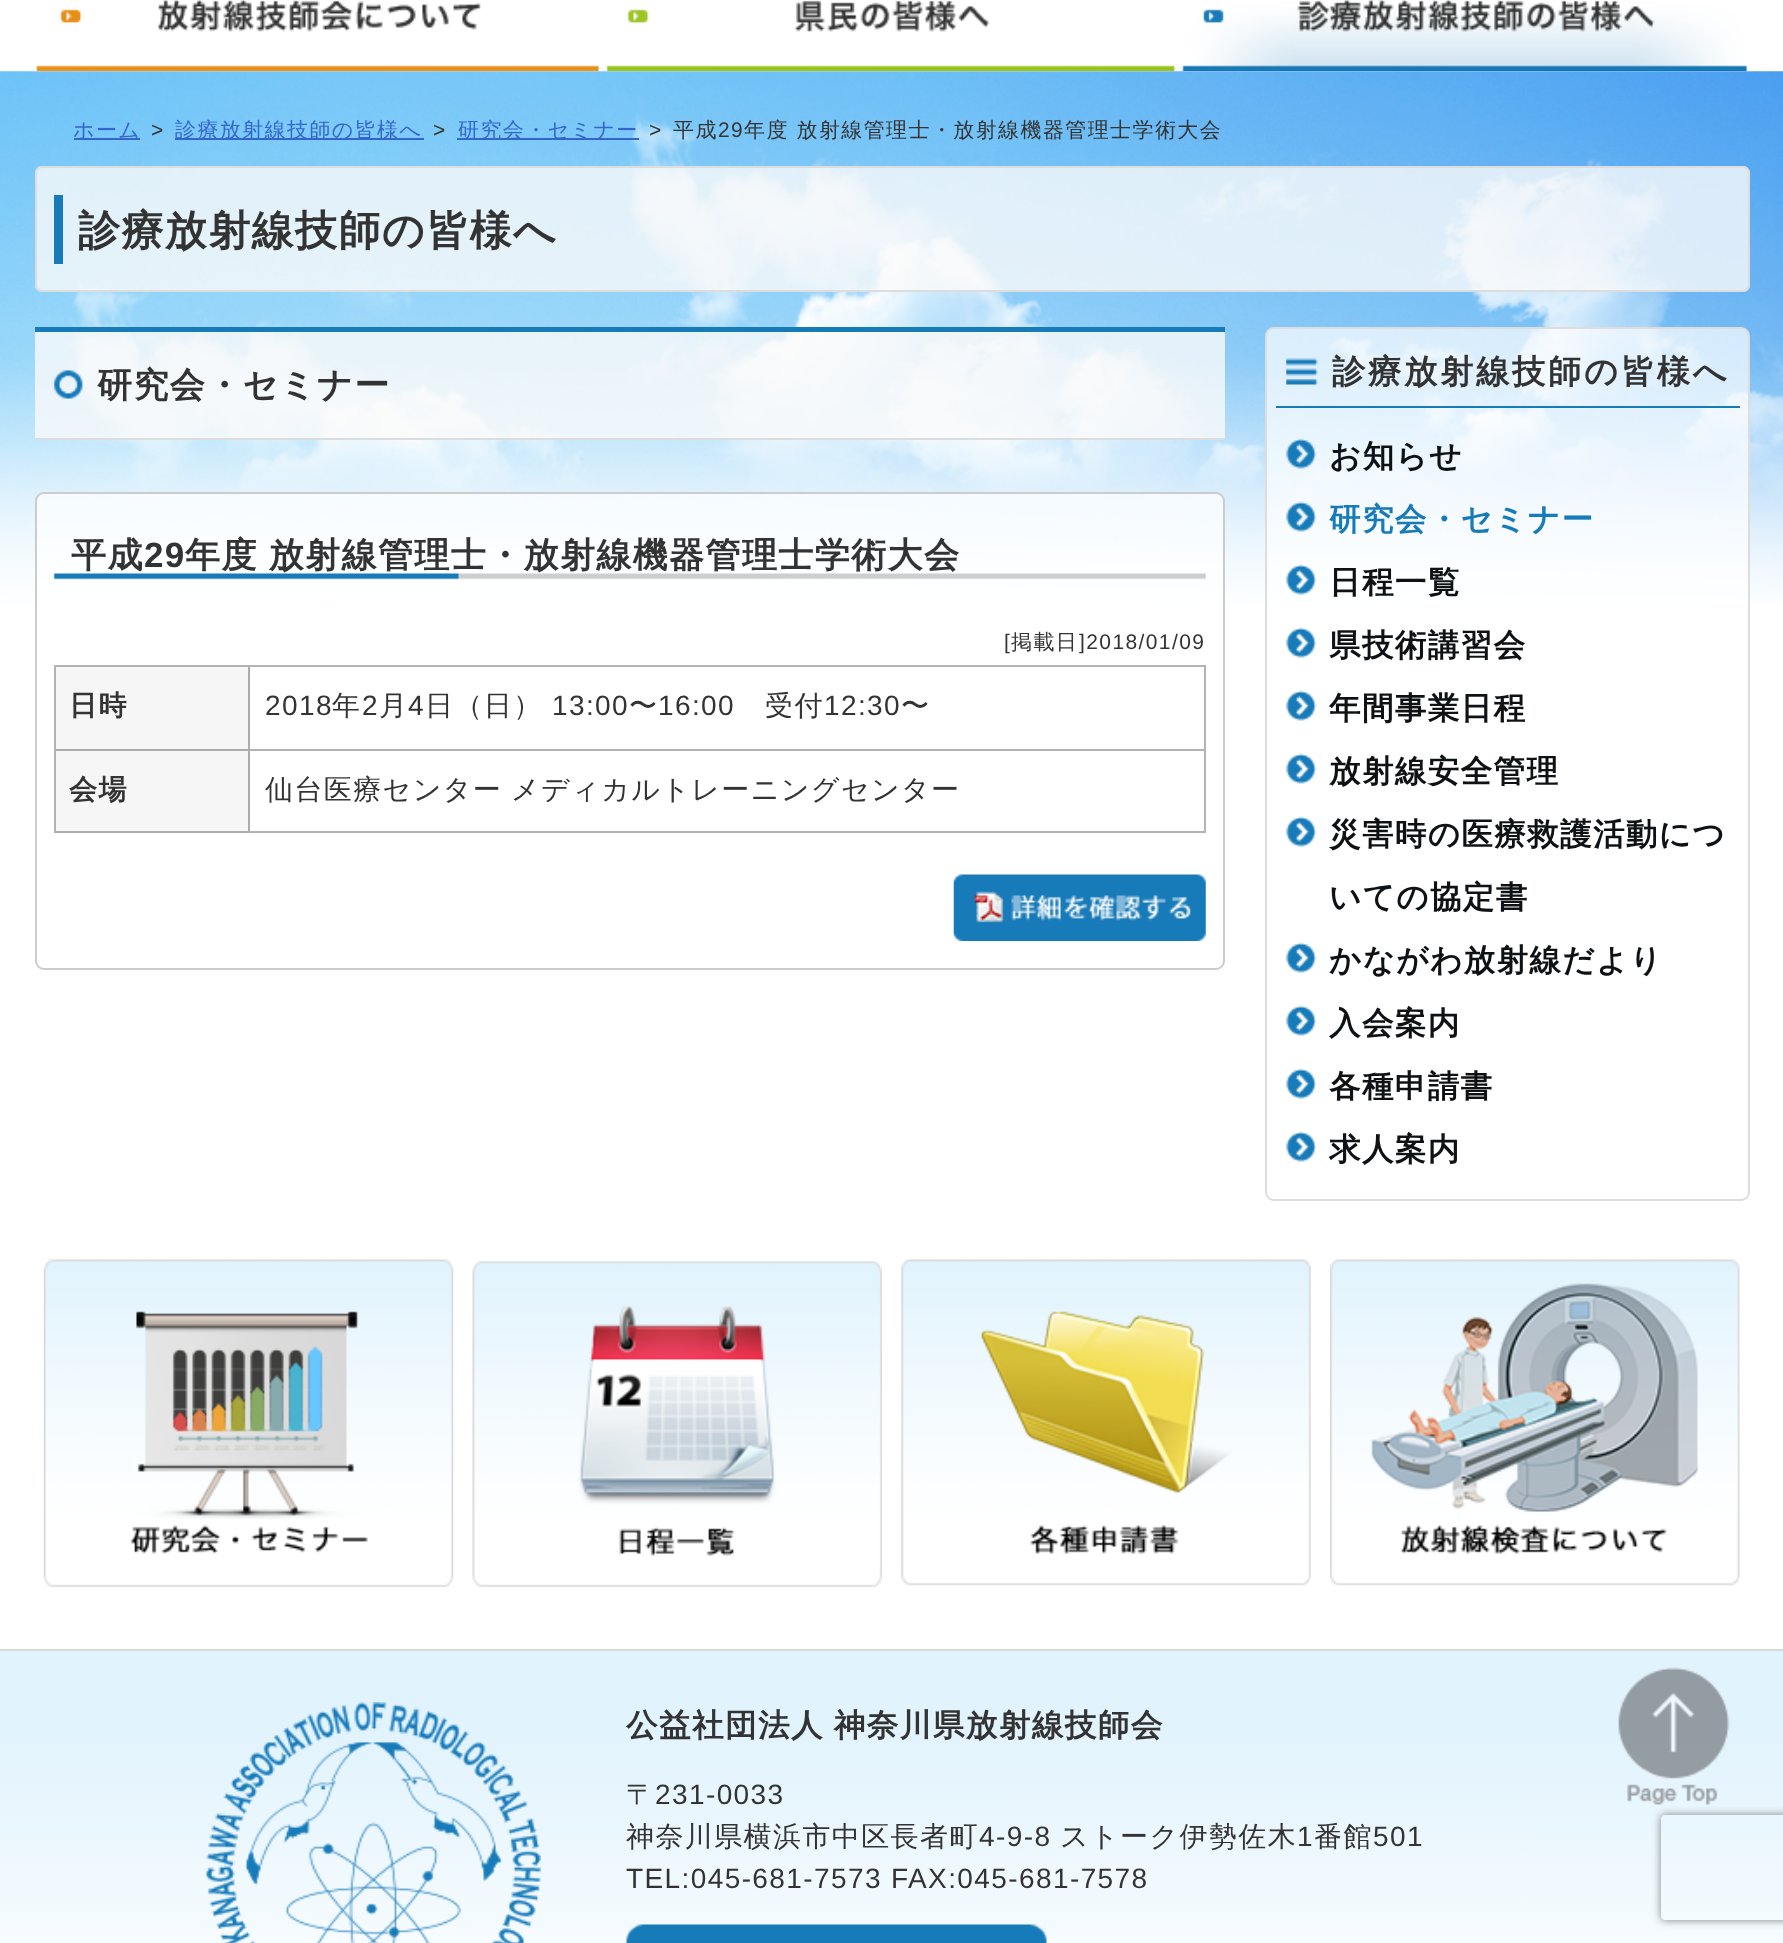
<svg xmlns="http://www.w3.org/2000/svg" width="1783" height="1943">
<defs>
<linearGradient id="g1" gradientUnits="userSpaceOnUse" x1="892" y1="1650" x2="892" y2="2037"><stop offset="0.2" stop-color="#e1f3fd"/><stop offset="1" stop-color="#fff"/></linearGradient>
<clipPath id="clip1"><path d="M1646 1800h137v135h-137zm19 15h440c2 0 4 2 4 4v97c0 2-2 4-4 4h-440c-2 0-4-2-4-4v-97c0-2 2-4 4-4z" clip-rule="evenodd"/></clipPath>
</defs>
<rect width="100%" height="100%" fill="#fff"/>
<image x="0" y="71" width="1783" height="535" href="media/4.png"/>
<image x="35" y="0" width="570" height="72" href="media/1.png"/>
<image x="607" y="0" width="569" height="72" href="media/2.png"/>
<image x="1182" y="0" width="565" height="72" href="media/3.png"/>
<rect x="74" y="138" width="66" height="2" fill="#36c"/>
<text x="73" y="137" style="font-family:WenQuanYi Zen Hei;font-size:21px;font-weight:500;letter-spacing:1.4px;fill:#36c">ホーム</text>
<text x="151" y="137" style="font-family:Liberation Sans;font-size:21px;letter-spacing:1.4px;fill:#333">&gt;</text>
<rect x="175" y="138" width="249" height="2" fill="#36c"/>
<text x="175" y="137" style="font-family:WenQuanYi Zen Hei;font-size:21px;font-weight:500;letter-spacing:1.4px;fill:#36c">診療放射線技師の皆様へ</text>
<text x="433" y="137" style="font-family:Liberation Sans;font-size:21px;letter-spacing:1.4px;fill:#333">&gt;</text>
<rect x="457" y="138" width="182" height="2" fill="#36c"/>
<text x="458" y="137" style="font-family:WenQuanYi Zen Hei;font-size:21px;font-weight:500;letter-spacing:1.4px;fill:#36c">研究会・セミナー</text>
<text x="649" y="137" style="font-family:Liberation Sans;font-size:21px;letter-spacing:1.4px;fill:#333">&gt;</text>
<text x="673" y="137" style="font-family:WenQuanYi Zen Hei;font-size:21px;font-weight:500;letter-spacing:1.4px;fill:#333">平成</text>
<text x="718" y="137" style="font-family:Liberation Sans;font-size:21px;letter-spacing:1.4px;fill:#333">29</text>
<text x="744" y="137" style="font-family:WenQuanYi Zen Hei;font-size:21px;font-weight:500;letter-spacing:1.4px;fill:#333">年度 放射線管理士・放射線機器管理士学術大会</text>
<rect x="35" y="166" width="1715" height="126" rx="7" fill="#fafafacc"/>
<rect x="54" y="195" width="9" height="69" fill="#177ab9"/>
<rect x="36" y="167" width="1713" height="124" rx="6" fill="none" stroke="#ddd" stroke-width="2"/>
<text x="78" y="245" style="font-family:WenQuanYi Zen Hei;font-size:42px;font-weight:bold;letter-spacing:1.4px;fill:#333">診療放射線技師の皆様へ</text>
<rect x="35" y="332" width="1190" height="106" fill="#fafafacc"/>
<image x="53" y="370" width="30" height="29" href="media/5.png"/>
<rect x="35" y="327" width="1190" height="5" fill="#177ab9"/>
<rect x="35" y="438" width="1190" height="2" fill="#ddd"/>
<text x="97" y="397" style="font-family:WenQuanYi Zen Hei;font-size:35px;font-weight:bold;letter-spacing:1.4px;fill:#333">研究会・セミナー</text>
<rect x="36" y="493" width="1188" height="476" rx="8" fill="#ffffffb3" stroke="#ccc" stroke-width="2"/>
<image x="54" y="573" width="1152" height="7" href="media/6.png"/>
<text x="71" y="567" style="font-family:WenQuanYi Zen Hei;font-size:35px;font-weight:bold;letter-spacing:1.4px;fill:#333">平成</text>
<text x="144" y="567" style="font-family:Liberation Sans;font-size:35px;font-weight:bold;letter-spacing:1.4px;fill:#333">29</text>
<text x="185" y="567" word-spacing="-1" style="font-family:WenQuanYi Zen Hei;font-size:35px;font-weight:bold;letter-spacing:1.4px;fill:#333">年度 放射線管理士・放射線機器管理士学術大会</text>
<text x="1004" y="649" style="font-family:Liberation Sans;font-size:21px;letter-spacing:1.4px;fill:#333">[</text>
<text x="1011" y="649" style="font-family:WenQuanYi Zen Hei;font-size:21px;font-weight:500;letter-spacing:1.4px;fill:#333">掲載日</text>
<text x="1079" y="649" style="font-family:Liberation Sans;font-size:21px;letter-spacing:1.4px;fill:#333">]2018/01/09</text>
<path d="M54 665h1152v2h-1150z" fill="#b3b3b3"/>
<path d="M54 833v-168l2 2v166z" fill="#0000004d"/>
<rect x="56" y="667" width="194" height="166" fill="#f6f6f6"/>
<path d="M250 667v84l-2-2v-82z" fill="#acacac"/>
<path d="M250 751h-194v-2h192z" fill="#0000004d"/>
<text x="69" y="715" style="font-family:WenQuanYi Zen Hei;font-size:28px;font-weight:bold;letter-spacing:1.4px;fill:#333">日時</text>
<path d="M1206 667v84l-2-2v-82z" fill="#b3b3b3"/>
<path d="M1206 751h-956v-2h954z" fill="#0000004d"/>
<text x="265" y="715" style="font-family:Liberation Sans;font-size:28px;letter-spacing:1.4px;fill:#333">2018</text>
<text x="332" y="715" style="font-family:WenQuanYi Zen Hei;font-size:28px;font-weight:500;letter-spacing:1.4px;fill:#333">年</text>
<text x="362" y="715" style="font-family:Liberation Sans;font-size:28px;letter-spacing:1.4px;fill:#333">2</text>
<text x="379" y="715" style="font-family:WenQuanYi Zen Hei;font-size:28px;font-weight:500;letter-spacing:1.4px;fill:#333">月</text>
<text x="408" y="715" style="font-family:Liberation Sans;font-size:28px;letter-spacing:1.4px;fill:#333">4</text>
<text x="425" y="715" style="font-family:WenQuanYi Zen Hei;font-size:28px;font-weight:500;letter-spacing:1.4px;fill:#333">日（日）</text>
<text x="552" y="715" style="font-family:Liberation Sans;font-size:28px;letter-spacing:1.4px;fill:#333">13:00</text>
<text x="629" y="715" style="font-family:WenQuanYi Zen Hei;font-size:28px;font-weight:500;letter-spacing:1.4px;fill:#333">〜</text>
<text x="658" y="715" style="font-family:Liberation Sans;font-size:28px;letter-spacing:1.4px;fill:#333">16:00</text>
<text x="765" y="715" style="font-family:WenQuanYi Zen Hei;font-size:28px;font-weight:500;letter-spacing:1.4px;fill:#333">受付</text>
<text x="824" y="715" style="font-family:Liberation Sans;font-size:28px;letter-spacing:1.4px;fill:#333">12:30</text>
<text x="901" y="715" style="font-family:WenQuanYi Zen Hei;font-size:28px;font-weight:500;letter-spacing:1.4px;fill:#333">〜</text>
<path d="M250 751v82l-2-2v-80z" fill="#acacac"/>
<path d="M250 833h-194v-2h192z" fill="#0000004d"/>
<text x="69" y="799" style="font-family:WenQuanYi Zen Hei;font-size:28px;font-weight:bold;letter-spacing:1.4px;fill:#333">会場</text>
<path d="M1206 751v82l-2-2v-80z" fill="#b3b3b3"/>
<path d="M1206 833h-956v-2h954z" fill="#0000004d"/>
<text x="265" y="799" word-spacing="-1" style="font-family:WenQuanYi Zen Hei;font-size:28px;font-weight:500;letter-spacing:1.4px;fill:#333">仙台医療センター メディカルトレーニングセンター</text>
<image x="953" y="874" width="253" height="67" href="media/7.png"/>
<rect x="1266" y="328" width="483" height="872" rx="8" fill="#ffffffb3" stroke="#ddd" stroke-width="2"/>
<image x="1286" y="358" width="32" height="27" href="media/8.png"/>
<rect x="1276" y="406" width="464" height="2" fill="#177ab9"/>
<text x="1332" y="383" style="font-family:WenQuanYi Zen Hei;font-size:33.25px;font-weight:bold;letter-spacing:2.75px;fill:#333">診療放射線技師の皆様へ</text>
<image x="1286" y="438" width="31" height="31" href="media/9.png"/>
<text x="1329" y="467" style="font-family:WenQuanYi Zen Hei;font-size:31.5px;font-weight:bold;letter-spacing:1.4px;fill:#0e1214">お知らせ</text>
<image x="1286" y="501" width="31" height="31" href="media/10.png"/>
<text x="1329" y="530" style="font-family:WenQuanYi Zen Hei;font-size:31.5px;font-weight:bold;letter-spacing:1.4px;fill:#177ab9">研究会・セミナー</text>
<image x="1286" y="564" width="31" height="31" href="media/11.png"/>
<text x="1329" y="593" style="font-family:WenQuanYi Zen Hei;font-size:31.5px;font-weight:bold;letter-spacing:1.4px;fill:#0e1214">日程一覧</text>
<image x="1286" y="627" width="31" height="31" href="media/12.png"/>
<text x="1329" y="656" style="font-family:WenQuanYi Zen Hei;font-size:31.5px;font-weight:bold;letter-spacing:1.4px;fill:#0e1214">県技術講習会</text>
<image x="1286" y="690" width="31" height="31" href="media/12.png"/>
<text x="1329" y="719" style="font-family:WenQuanYi Zen Hei;font-size:31.5px;font-weight:bold;letter-spacing:1.4px;fill:#0e1214">年間事業日程</text>
<image x="1286" y="753" width="31" height="31" href="media/12.png"/>
<text x="1329" y="782" style="font-family:WenQuanYi Zen Hei;font-size:31.5px;font-weight:bold;letter-spacing:1.4px;fill:#0e1214">放射線安全管理</text>
<image x="1286" y="816" width="31" height="31" href="media/12.png"/>
<text x="1329" y="845" style="font-family:WenQuanYi Zen Hei;font-size:31.5px;font-weight:bold;letter-spacing:1.4px;fill:#0e1214">災害時の医療救護活動につ</text>
<text x="1329" y="908" style="font-family:WenQuanYi Zen Hei;font-size:31.5px;font-weight:bold;letter-spacing:1.4px;fill:#0e1214">いての協定書</text>
<image x="1286" y="942" width="31" height="31" href="media/12.png"/>
<text x="1329" y="971" style="font-family:WenQuanYi Zen Hei;font-size:31.5px;font-weight:bold;letter-spacing:1.4px;fill:#0e1214">かながわ放射線だより</text>
<image x="1286" y="1005" width="31" height="31" href="media/12.png"/>
<text x="1329" y="1034" style="font-family:WenQuanYi Zen Hei;font-size:31.5px;font-weight:bold;letter-spacing:1.4px;fill:#0e1214">入会案内</text>
<image x="1286" y="1068" width="31" height="31" href="media/12.png"/>
<text x="1329" y="1097" style="font-family:WenQuanYi Zen Hei;font-size:31.5px;font-weight:bold;letter-spacing:1.4px;fill:#0e1214">各種申請書</text>
<image x="1286" y="1131" width="31" height="31" href="media/12.png"/>
<text x="1329" y="1160" style="font-family:WenQuanYi Zen Hei;font-size:31.5px;font-weight:bold;letter-spacing:1.4px;fill:#0e1214">求人案内</text>
<image x="43" y="1259" width="411" height="329" href="media/13.png"/>
<image x="472" y="1261" width="410" height="327" href="media/14.png"/>
<image x="901" y="1259" width="410" height="327" href="media/15.png"/>
<image x="1330" y="1259" width="410" height="327" href="media/16.png"/>
<rect y="1651" width="1783" height="292" fill="url(#g1)"/>
<rect y="1649" width="1783" height="2" fill="#dadada"/>
<image x="206" y="1702" width="335" height="241" href="media/17.png"/>
<text x="626" y="1736" word-spacing="-1" style="font-family:WenQuanYi Zen Hei;font-size:31.6px;font-weight:bold;letter-spacing:1.4px;fill:#333">公益社団法人 神奈川県放射線技師会</text>
<text x="626" y="1804" style="font-family:WenQuanYi Zen Hei;font-size:28px;font-weight:500;letter-spacing:1.4px;fill:#333">〒</text>
<text x="655" y="1804" style="font-family:Liberation Sans;font-size:28px;letter-spacing:1.4px;fill:#333">231-0033</text>
<text x="626" y="1846" style="font-family:WenQuanYi Zen Hei;font-size:28px;font-weight:500;letter-spacing:1.4px;fill:#333">神奈川県横浜市中区長者町</text>
<text x="979" y="1846" style="font-family:Liberation Sans;font-size:28px;letter-spacing:1.4px;fill:#333">4-9-8</text>
<text x="1060" y="1846" style="font-family:WenQuanYi Zen Hei;font-size:28px;font-weight:500;letter-spacing:1.4px;fill:#333">ストーク伊勢佐木</text>
<text x="1297" y="1846" style="font-family:Liberation Sans;font-size:28px;letter-spacing:1.4px;fill:#333">1</text>
<text x="1314" y="1846" style="font-family:WenQuanYi Zen Hei;font-size:28px;font-weight:500;letter-spacing:1.4px;fill:#333">番館</text>
<text x="1373" y="1846" style="font-family:Liberation Sans;font-size:28px;letter-spacing:1.4px;fill:#333">501</text>
<text x="626" y="1888" style="font-family:Liberation Sans;font-size:28px;letter-spacing:1.4px;fill:#333">TEL:045-681-7573 FAX:045-681-7578</text>
<image x="626" y="1924" width="421" height="19" href="media/18.png"/>
<g clip-path="url(#clip1)">
<rect x="1661" y="1815" width="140" height="105" rx="4" fill="#808080" filter="blur(4.5px)"/>
</g>
<image x="1618" y="1667" width="112" height="138" href="media/19.png"/>
</svg>
